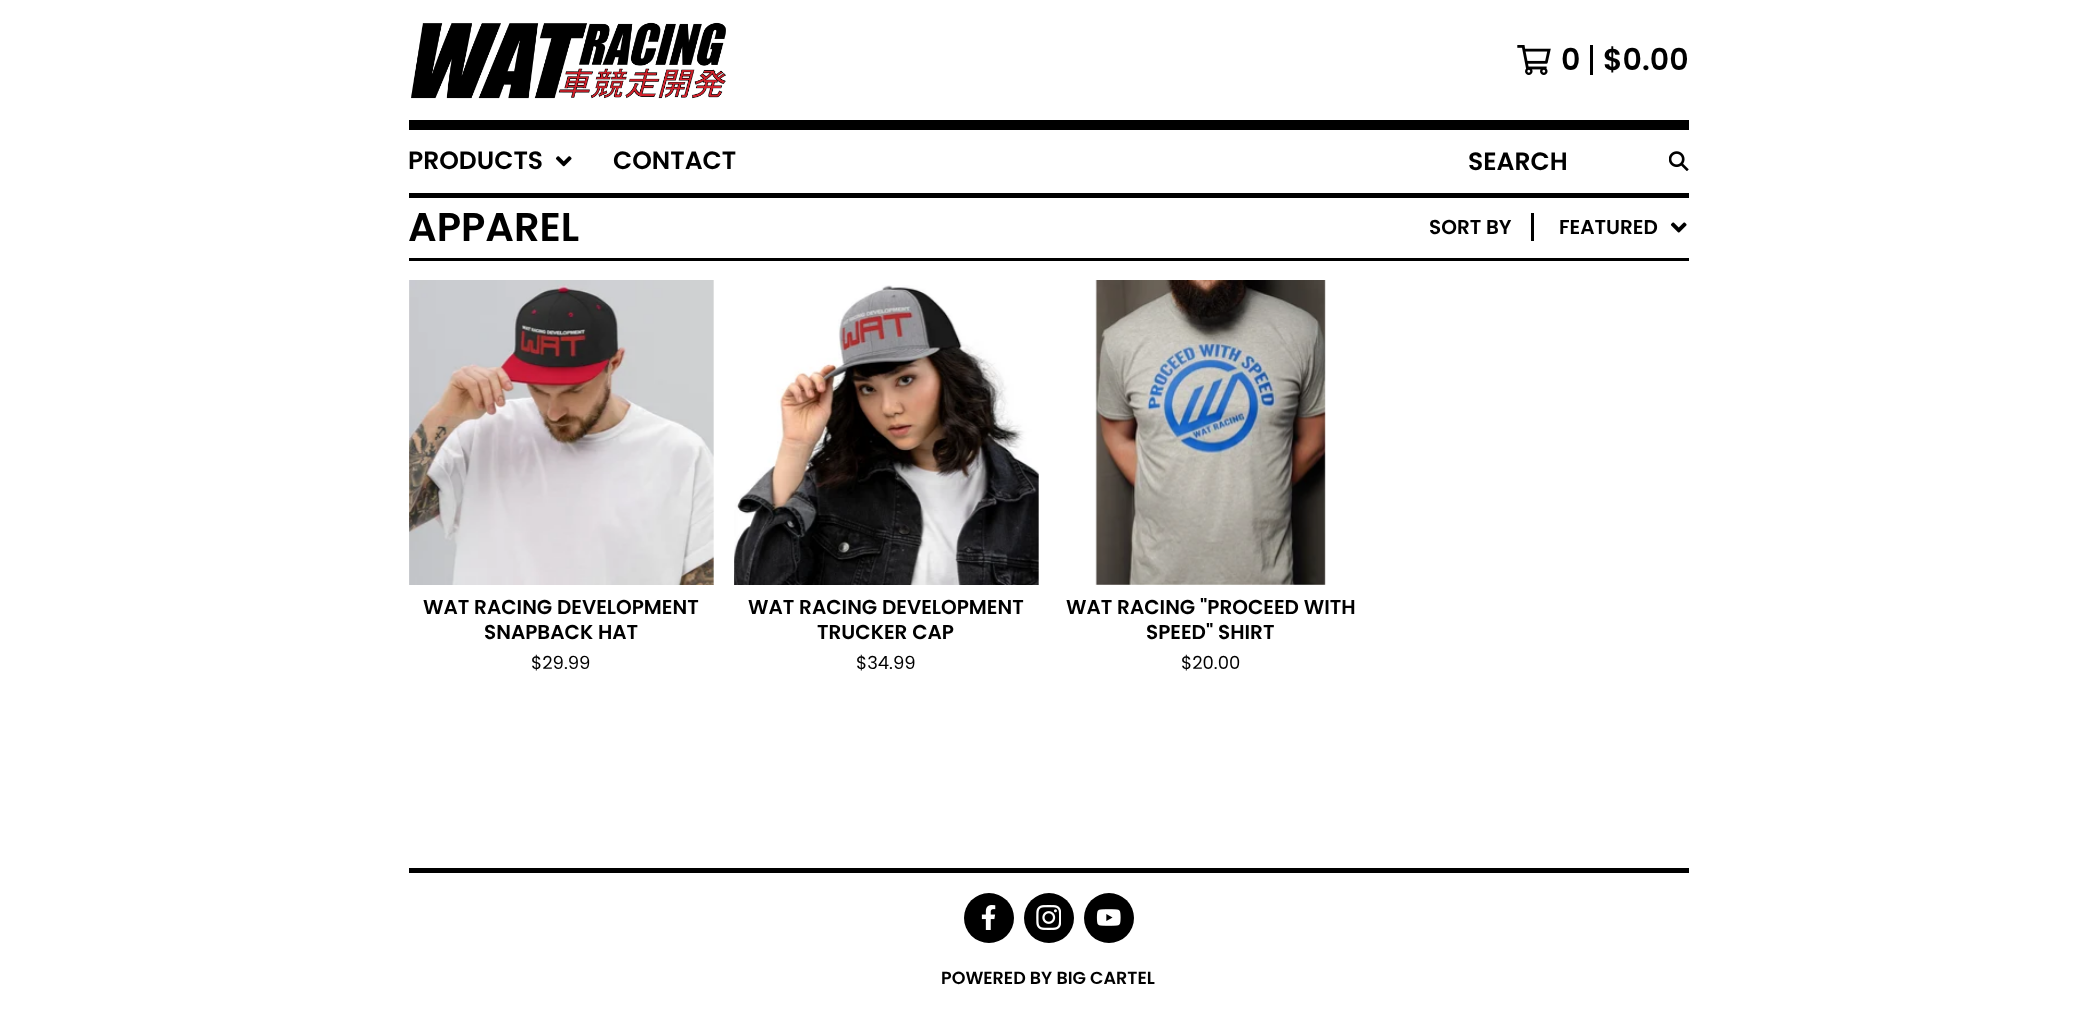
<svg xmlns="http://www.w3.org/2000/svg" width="2096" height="1012">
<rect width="100%" height="100%" fill="#fff"/>
<rect x="409" y="120" width="1280" height="10" fill="#000"/>
<image x="411" y="22" width="315" height="77" href="media/1.png"/>
<image x="1517" y="45" width="34" height="30" href="media/2.png"/>
<rect x="1590" y="45" width="3" height="30" fill="#000"/>
<text x="1561" y="70" style="font-family:Poppins;font-size:30px;font-weight:600;fill:#000">0</text>
<text x="1603" y="70" style="font-family:Poppins;font-size:30px;font-weight:600;fill:#000">$0.00</text>
<rect x="409" y="193" width="1280" height="5" fill="#000"/>
<text x="408" y="169" style="font-family:Poppins;font-size:25px;font-weight:600;fill:#000">PRODUCTS</text>
<image x="555" y="156" width="17" height="11" href="media/3.png"/>
<text x="613" y="169" style="font-family:Poppins;font-size:25px;font-weight:600;fill:#000">CONTACT</text>
<text x="1468" y="170" style="font-family:Poppins;font-size:25px;font-weight:600;fill:#000">SEARCH</text>
<image x="1669" y="151" width="20" height="20" href="media/4.png"/>
<rect x="409" y="258" width="1280" height="3" fill="#000"/>
<text x="408" y="241" style="font-family:Poppins;font-size:40px;font-weight:600;fill:#000">APPAREL</text>
<text x="1429" y="234" style="font-family:Poppins;font-size:20px;font-weight:600;fill:#000">SORT BY</text>
<rect x="1531" y="213" width="3" height="28" fill="#000"/>
<text x="1559" y="234" style="font-family:Poppins;font-size:20px;font-weight:600;fill:#000">FEATURED</text>
<image x="1670" y="222" width="17" height="11" href="media/5.png"/>
<image x="409" y="280" width="305" height="305" href="media/6.png"/>
<text x="423" y="614" style="font-family:Poppins;font-size:20px;font-weight:600;fill:#000">WAT RACING DEVELOPMENT</text>
<text x="484" y="639" style="font-family:Poppins;font-size:20px;font-weight:600;fill:#000">SNAPBACK HAT</text>
<text x="531" y="669" style="font-family:Poppins;font-size:18px;fill:#000">$29.99</text>
<image x="734" y="285" width="305" height="300" href="media/7.png"/>
<text x="748" y="614" style="font-family:Poppins;font-size:20px;font-weight:600;fill:#000">WAT RACING DEVELOPMENT</text>
<text x="817" y="639" style="font-family:Poppins;font-size:20px;font-weight:600;fill:#000">TRUCKER CAP</text>
<text x="856" y="669" style="font-family:Poppins;font-size:18px;fill:#000">$34.99</text>
<image x="1095" y="280" width="231" height="305" href="media/8.png"/>
<text x="1066" y="614" style="font-family:Poppins;font-size:20px;font-weight:600;fill:#000">WAT RACING "PROCEED WITH</text>
<text x="1146" y="639" style="font-family:Poppins;font-size:20px;font-weight:600;fill:#000">SPEED" SHIRT</text>
<text x="1181" y="669" style="font-family:Poppins;font-size:18px;fill:#000">$20.00</text>
<rect x="409" y="868" width="1280" height="5" fill="#000"/>
<circle cx="989" cy="918" r="25" fill="#000"/>
<image x="981" y="905" width="15" height="25" href="media/9.png"/>
<circle cx="1049" cy="918" r="25" fill="#000"/>
<image x="1036" y="905" width="25" height="25" href="media/10.png"/>
<circle cx="1109" cy="918" r="25" fill="#000"/>
<image x="1096" y="909" width="25" height="17" href="media/11.png"/>
<text x="941" y="984" style="font-family:Poppins;font-size:17.5px;font-weight:600;fill:#000">POWERED BY BIG CARTEL</text>
</svg>
